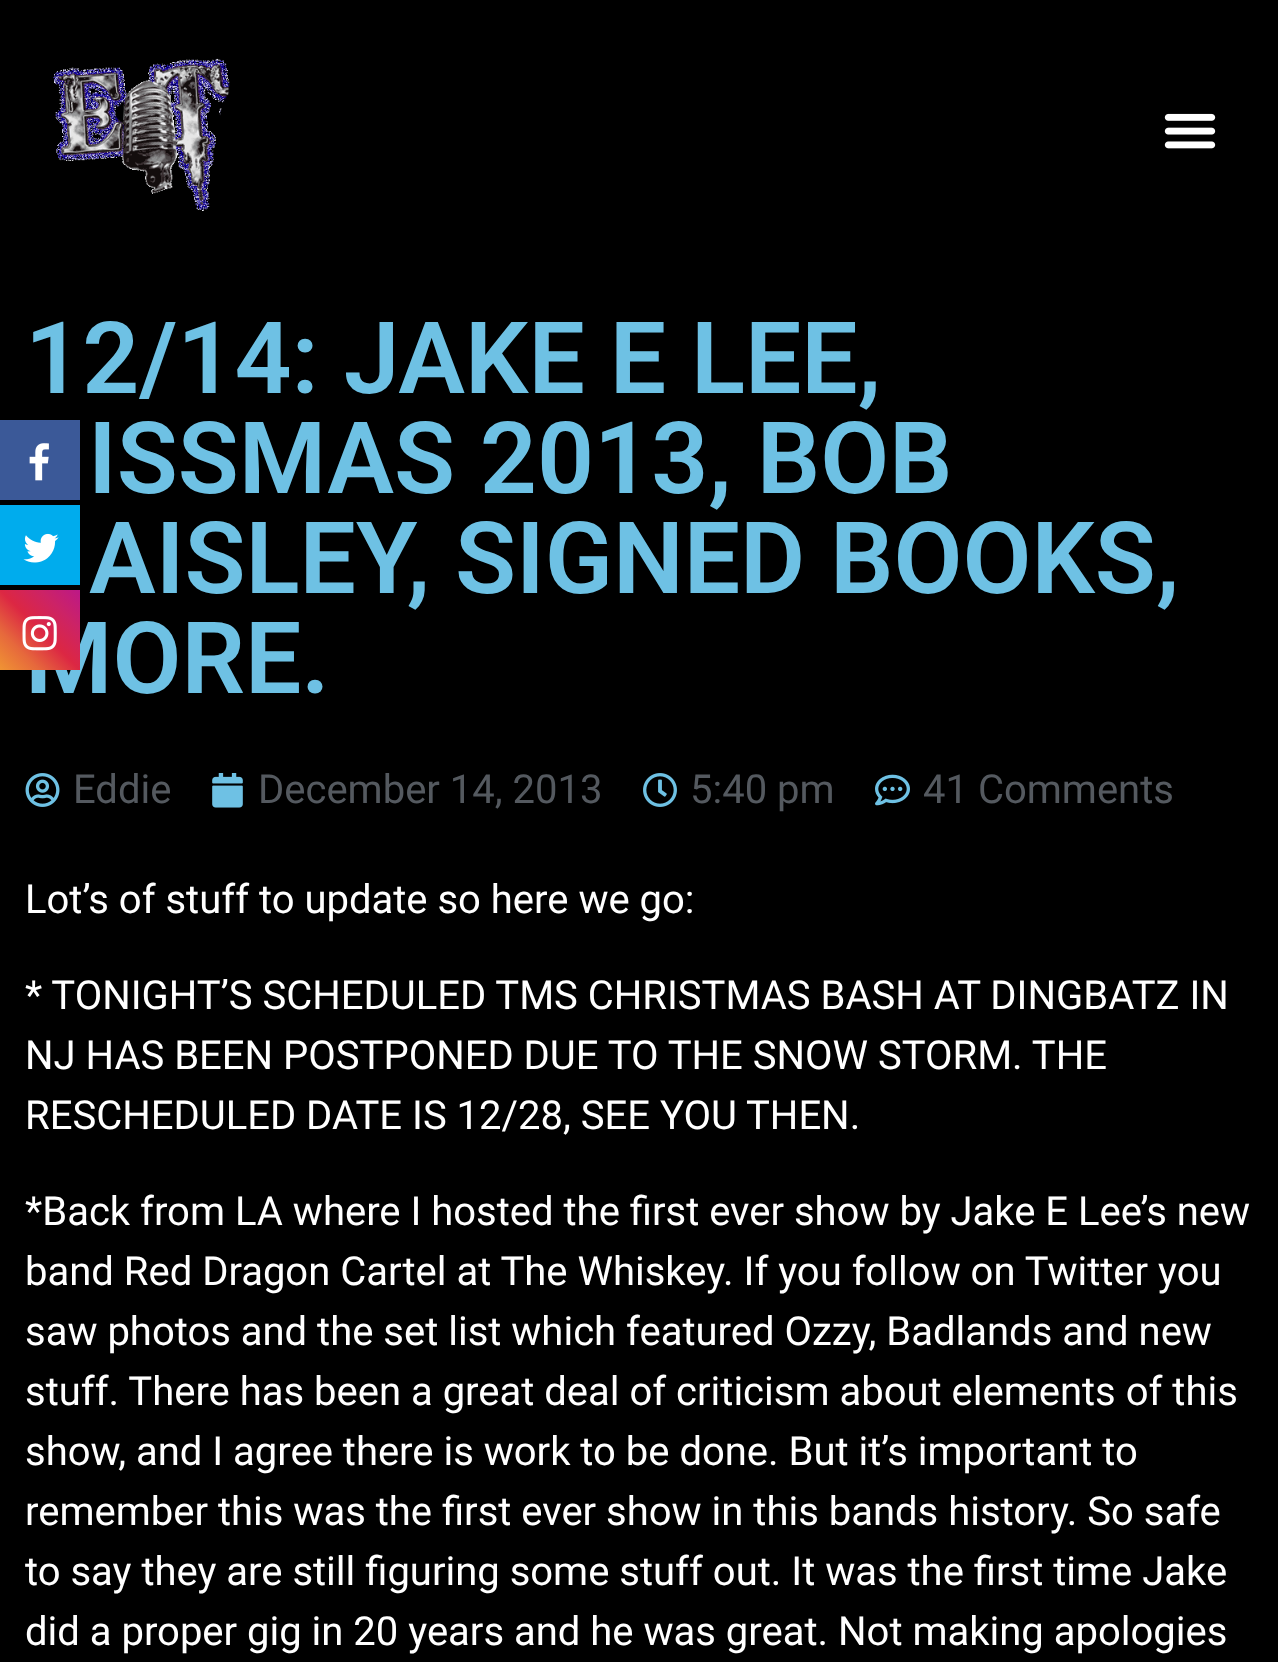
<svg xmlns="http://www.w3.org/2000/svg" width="1278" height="1662">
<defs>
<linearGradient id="g1" gradientUnits="userSpaceOnUse" x1="0" y1="670" x2="80" y2="590"><stop offset="0" stop-color="#f09433"/><stop offset="0.25" stop-color="#e6683c"/><stop offset="0.5" stop-color="#dc2743"/><stop offset="0.75" stop-color="#cc2366"/><stop offset="1" stop-color="#bc1888"/></linearGradient>
</defs>
<rect width="100%" height="100%" fill="#000"/>
<image x="53" y="58" width="177" height="153" href="media/1.png"/>
<image x="1164" y="113" width="52" height="36" href="media/2.png"/>
<text x="25" y="393" style="font-family:Roboto;font-size:100px;font-weight:600;fill:#6ec1e4">12/14: JAKE E LEE,</text>
<text x="88" y="493" style="font-family:Roboto;font-size:100px;font-weight:600;fill:#6ec1e4">ISSMAS 2013, BOB</text>
<text x="89" y="593" style="font-family:Roboto;font-size:100px;font-weight:600;fill:#6ec1e4">AISLEY, SIGNED BOOKS,</text>
<text x="25" y="693" style="font-family:Roboto;font-size:100px;font-weight:600;fill:#6ec1e4">MORE.</text>
<image x="25" y="773" width="35" height="34" href="media/3.png"/>
<text x="73" y="803" style="font-family:Roboto;font-size:40px;fill:#54595f">Eddie</text>
<image x="212" y="773" width="31" height="35" href="media/4.png"/>
<text x="258" y="803" style="font-family:Roboto;font-size:40px;fill:#54595f">December 14, 2013</text>
<image x="643" y="773" width="34" height="34" href="media/5.png"/>
<text x="690" y="803" style="font-family:Roboto;font-size:40px;fill:#54595f">5:40 pm</text>
<image x="875" y="774" width="35" height="32" href="media/6.png"/>
<text x="923" y="803" style="font-family:Roboto;font-size:40px;fill:#54595f">41 Comments</text>
<text x="25" y="913" style="font-family:Roboto;font-size:40px;fill:#fff">Lot’s of stuff to update so here we go:</text>
<text x="25" y="1009" style="font-family:Roboto;font-size:40px;fill:#fff">* TONIGHT’S SCHEDULED TMS CHRISTMAS BASH AT DINGBATZ IN</text>
<text x="25" y="1069" style="font-family:Roboto;font-size:40px;fill:#fff">NJ HAS BEEN POSTPONED DUE TO THE SNOW STORM. THE</text>
<text x="25" y="1129" style="font-family:Roboto;font-size:40px;fill:#fff">RESCHEDULED DATE IS 12/28, SEE YOU THEN.</text>
<text x="25" y="1225" style="font-family:Roboto;font-size:40px;fill:#fff">*Back from LA where I hosted the first ever show by Jake E Lee’s new</text>
<text x="25" y="1285" style="font-family:Roboto;font-size:40px;fill:#fff">band Red Dragon Cartel at The Whiskey. If you follow on Twitter you</text>
<text x="25" y="1345" style="font-family:Roboto;font-size:40px;fill:#fff">saw photos and the set list which featured Ozzy, Badlands and new</text>
<text x="25" y="1405" style="font-family:Roboto;font-size:40px;fill:#fff">stuff. There has been a great deal of criticism about elements of this</text>
<text x="25" y="1465" style="font-family:Roboto;font-size:40px;fill:#fff">show, and I agree there is work to be done. But it’s important to</text>
<text x="25" y="1525" style="font-family:Roboto;font-size:40px;fill:#fff">remember this was the first ever show in this bands history. So safe</text>
<text x="25" y="1585" style="font-family:Roboto;font-size:40px;fill:#fff">to say they are still figuring some stuff out. It was the first time Jake</text>
<text x="25" y="1645" style="font-family:Roboto;font-size:40px;fill:#fff">did a proper gig in 20 years and he was great. Not making apologies</text>
<rect y="420" width="80" height="80" fill="#3b5998"/>
<image x="29" y="443" width="20" height="38" href="media/7.png"/>
<rect y="505" width="80" height="80" fill="#00aced"/>
<image x="23" y="533" width="36" height="30" href="media/8.png"/>
<rect y="590" width="80" height="80" fill="url(#g1)"/>
<image x="22" y="616" width="35" height="35" href="media/9.png"/>
</svg>
